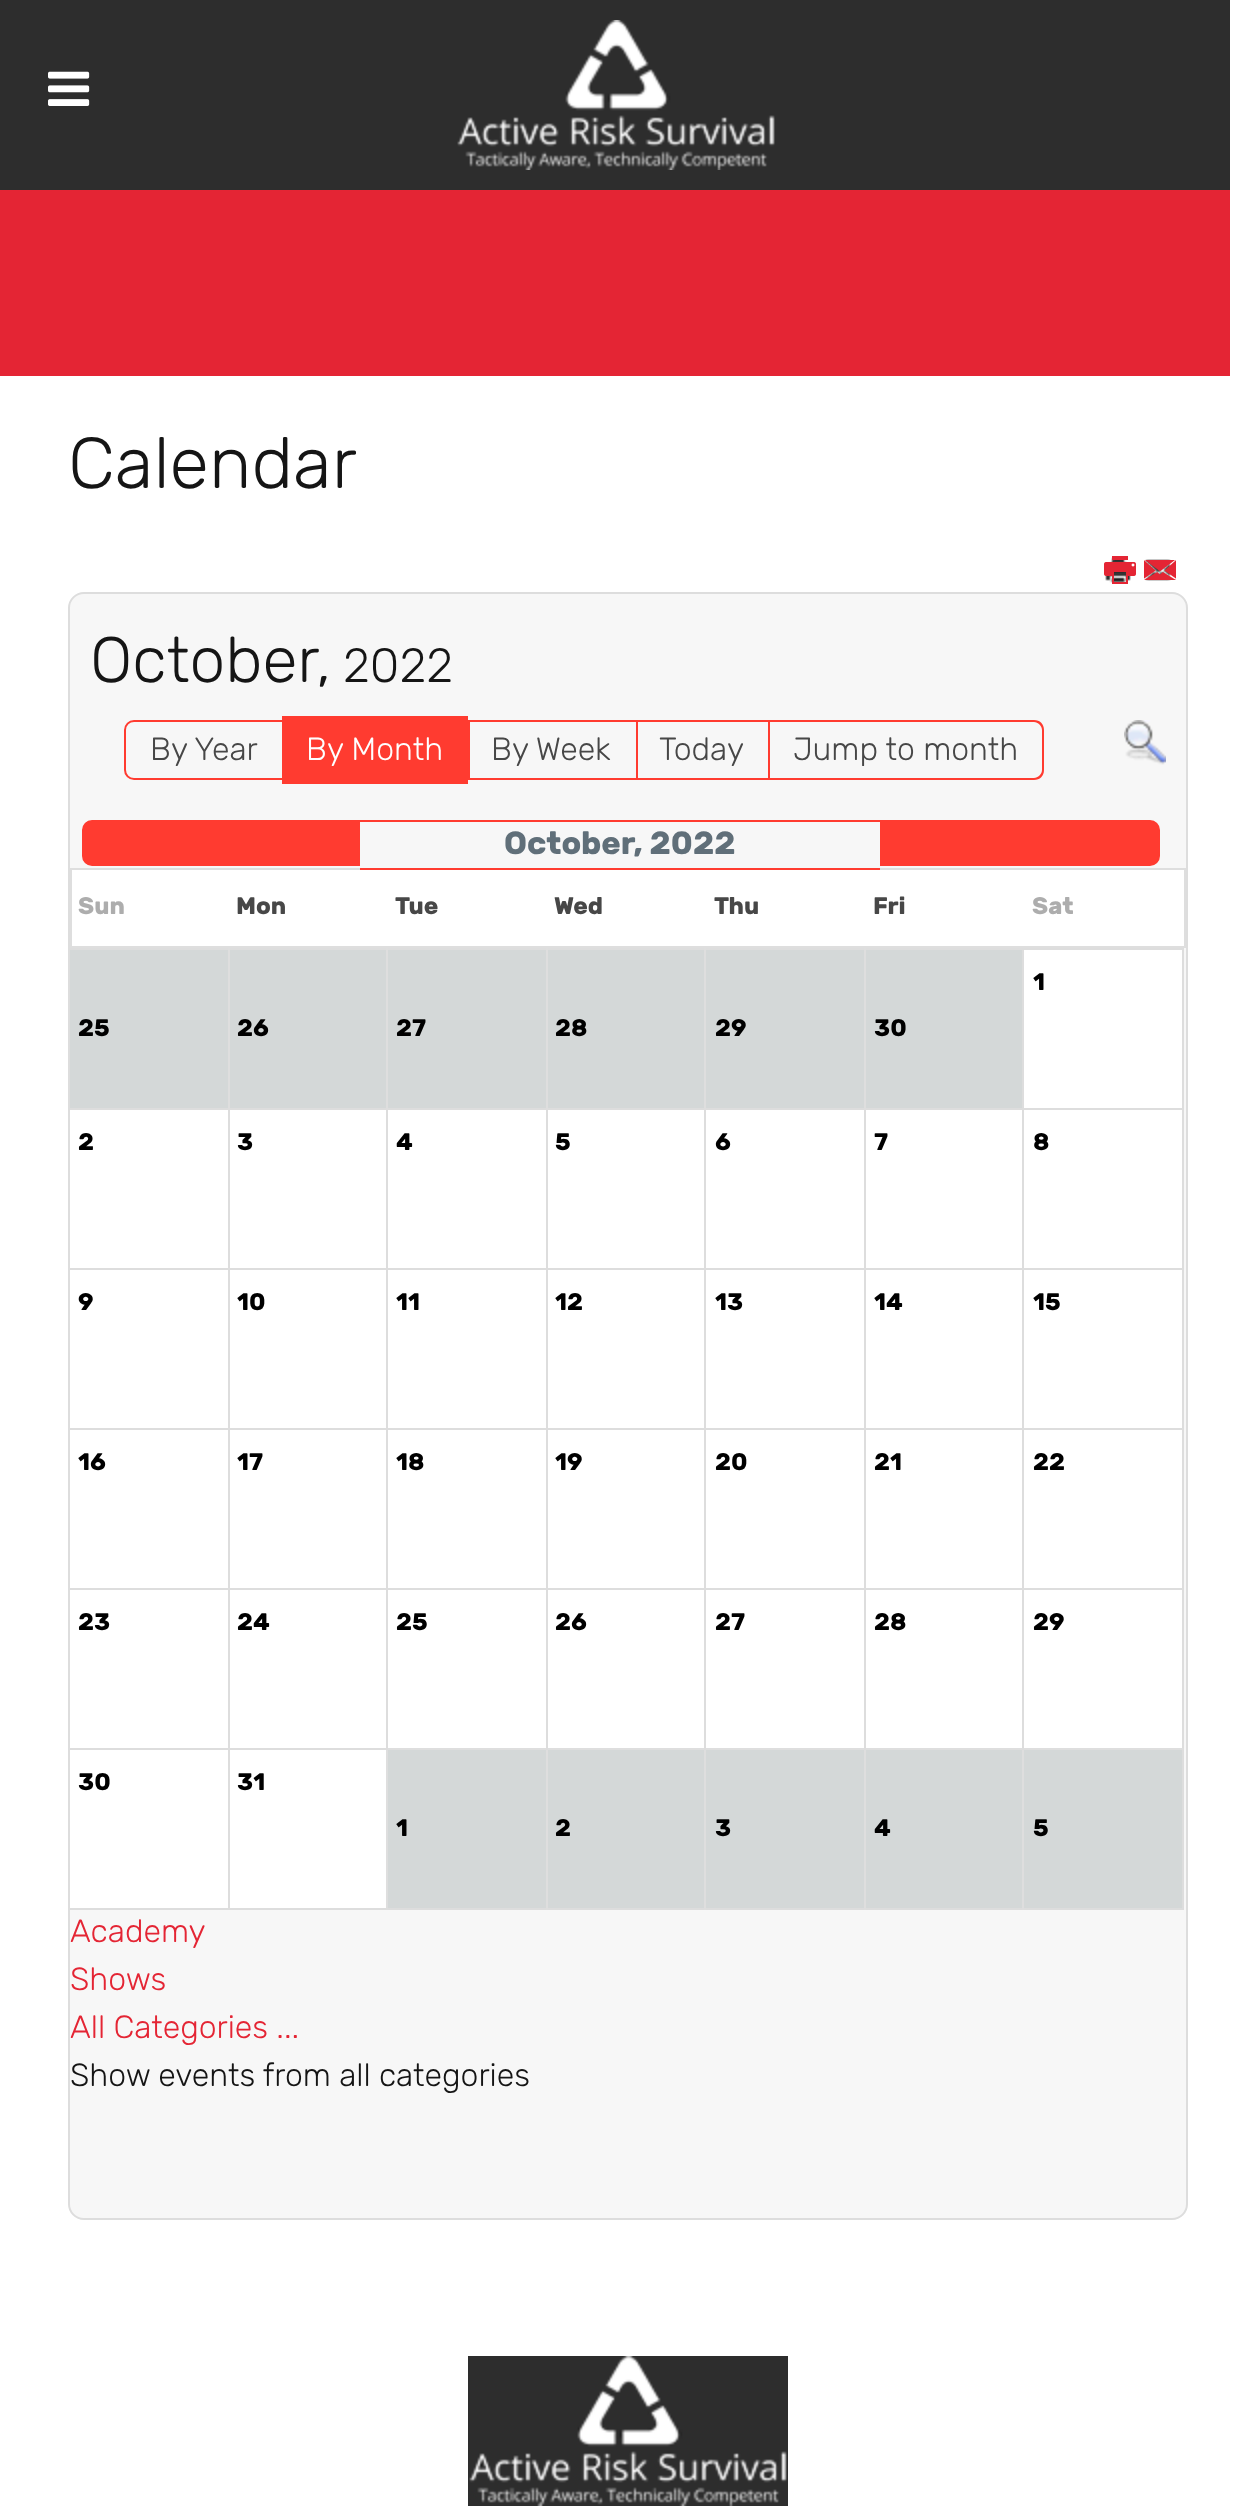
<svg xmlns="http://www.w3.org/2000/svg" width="1256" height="2512">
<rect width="100%" height="100%" fill="#fff"/>
<rect width="1230" height="190" fill="#2d2d2d"/>
<image x="457" y="20" width="318" height="150" href="media/1.png"/>
<rect y="190" width="1230" height="186" fill="#e42534"/>
<image x="48" y="71" width="42" height="35" href="media/2.png"/>
<text x="68" y="488" style="font-family:Rubik;font-size:72px;font-weight:300;fill:#151515">Calendar</text>
<image x="1105" y="557" width="26" height="26" href="media/3.png"/>
<image x="1104" y="556" width="32" height="28" href="media/4.png"/>
<image x="1145" y="559" width="26" height="22" href="media/5.png"/>
<image x="1144" y="560" width="32" height="20" href="media/6.png"/>
<rect x="69" y="593" width="1118" height="1626" rx="15" fill="#f7f7f7" stroke="#ddd" stroke-width="2"/>
<text x="90" y="682" style="font-family:Rubik;font-size:64px;font-weight:300;fill:#151515">October,</text>
<text x="343" y="682" style="font-family:Rubik;font-size:48px;font-weight:300;fill:#151515">2022</text>
<path d="M134 721h149v58h-149c-5 0-9-4-9-9v-40c0-5 4-9 9-9z" fill="none" stroke="#ff3b30" stroke-width="2"/>
<text x="150" y="760" style="font-family:Rubik;font-size:32px;font-weight:300;fill:#474747">By Year</text>
<rect x="468" y="720" width="2" height="60" fill="#ff3b30"/>
<rect x="282" y="716" width="186" height="68" fill="#ff3b30"/>
<text x="306" y="760" style="font-family:Rubik;font-size:32px;font-weight:300;fill:#fff">By Month</text>
<rect x="468" y="720" width="170" height="2" fill="#ff3b30"/>
<rect x="636" y="720" width="2" height="60" fill="#ff3b30"/>
<rect x="468" y="778" width="170" height="2" fill="#ff3b30"/>
<text x="491" y="760" style="font-family:Rubik;font-size:32px;font-weight:300;fill:#474747">By Week</text>
<rect x="636" y="720" width="134" height="2" fill="#ff3b30"/>
<rect x="768" y="720" width="2" height="60" fill="#ff3b30"/>
<rect x="636" y="778" width="134" height="2" fill="#ff3b30"/>
<text x="659" y="760" style="font-family:Rubik;font-size:32px;font-weight:300;fill:#474747">Today</text>
<path d="M768 720h266c6 0 10 4 10 10v40c0 6-4 10-10 10h-266zm0 2h266c4 0 8 4 8 8v40c0 4-4 8-8 8h-266z" fill="#ff3b30" fill-rule="evenodd"/>
<text x="793" y="760" style="font-family:Rubik;font-size:32px;font-weight:300;fill:#474747">Jump to month</text>
<image x="1124" y="720" width="42" height="45" href="media/7.png"/>
<path d="M92 821h267v44h-267c-5 0-9-4-9-9v-26c0-5 4-9 9-9z" fill="#ff3b30" stroke="#ff3b30" stroke-width="2"/>
<rect x="360" y="820" width="520" height="2" fill="#ff3b30"/>
<rect x="70" y="868" width="1116" height="2" fill="#dedede"/>
<rect x="360" y="868" width="520" height="2" fill="#ff3b30"/>
<text x="504" y="854" style="font-family:Rubik;font-size:32px;font-weight:bold;fill:#606f79">October, 2022</text>
<path d="M881 821h269c5 0 9 4 9 9v26c0 5-4 9-9 9h-269z" fill="#ff3b30" stroke="#ff3b30" stroke-width="2"/>
<rect x="1184" y="868" width="2" height="80" fill="#dedede"/>
<rect x="70" y="946" width="1116" height="2" fill="#dedede"/>
<rect x="70" y="868" width="2" height="80" fill="#dedede"/>
<rect x="72" y="870" width="1112" height="76" fill="#fff"/>
<text x="78" y="914" style="font-family:Rubik;font-size:24px;font-weight:bold;fill:#adadad">Sun</text>
<text x="236" y="914" style="font-family:Rubik;font-size:24px;font-weight:bold;fill:#474747">Mon</text>
<text x="395" y="914" style="font-family:Rubik;font-size:24px;font-weight:bold;fill:#474747">Tue</text>
<text x="554" y="914" style="font-family:Rubik;font-size:24px;font-weight:bold;fill:#474747">Wed</text>
<text x="714" y="914" style="font-family:Rubik;font-size:24px;font-weight:bold;fill:#474747">Thu</text>
<text x="873" y="914" style="font-family:Rubik;font-size:24px;font-weight:bold;fill:#474747">Fri</text>
<text x="1032" y="914" style="font-family:Rubik;font-size:24px;font-weight:bold;fill:#adadad">Sat</text>
<rect x="68" y="948" width="1116" height="2" fill="#ddd"/>
<rect x="1182" y="948" width="2" height="962" fill="#ddd"/>
<rect x="68" y="1908" width="1116" height="2" fill="#ddd"/>
<rect x="1024" y="950" width="158" height="158" fill="#fff"/>
<rect x="1022" y="1108" width="162" height="2" fill="#ddd"/>
<rect x="1022" y="1268" width="162" height="2" fill="#ddd"/>
<rect x="1022" y="1428" width="162" height="2" fill="#ddd"/>
<rect x="1022" y="1588" width="162" height="2" fill="#ddd"/>
<rect x="1022" y="1748" width="162" height="2" fill="#dedede"/>
<rect x="1022" y="1748" width="2" height="162" fill="#dedede"/>
<rect x="864" y="1748" width="160" height="2" fill="#dedede"/>
<rect x="1022" y="1588" width="2" height="162" fill="#ddd"/>
<rect x="864" y="1588" width="160" height="2" fill="#ddd"/>
<rect x="1022" y="1428" width="2" height="162" fill="#ddd"/>
<rect x="864" y="1428" width="160" height="2" fill="#ddd"/>
<rect x="1022" y="1268" width="2" height="162" fill="#ddd"/>
<rect x="864" y="1268" width="160" height="2" fill="#ddd"/>
<rect x="1022" y="1108" width="2" height="162" fill="#ddd"/>
<rect x="864" y="1108" width="160" height="2" fill="#ddd"/>
<rect x="1022" y="948" width="2" height="162" fill="#ddd"/>
<text x="1033" y="990" style="font-family:Rubik;font-size:24px;font-weight:bold;fill:#000">1</text>
<rect x="70" y="950" width="158" height="158" fill="#d4d8d8"/>
<text x="78" y="1036" style="font-family:Rubik;font-size:24px;font-weight:bold;fill:#000">25</text>
<rect x="230" y="950" width="156" height="158" fill="#d4d8d8"/>
<rect x="864" y="1748" width="2" height="162" fill="#dedede"/>
<rect x="704" y="1748" width="162" height="2" fill="#dedede"/>
<rect x="864" y="1588" width="2" height="162" fill="#ddd"/>
<rect x="704" y="1588" width="162" height="2" fill="#ddd"/>
<rect x="864" y="1428" width="2" height="162" fill="#ddd"/>
<rect x="704" y="1428" width="162" height="2" fill="#ddd"/>
<rect x="864" y="1268" width="2" height="162" fill="#ddd"/>
<rect x="704" y="1268" width="162" height="2" fill="#ddd"/>
<rect x="864" y="1108" width="2" height="162" fill="#ddd"/>
<rect x="704" y="1108" width="162" height="2" fill="#ddd"/>
<rect x="704" y="1748" width="2" height="162" fill="#dedede"/>
<rect x="546" y="1748" width="160" height="2" fill="#dedede"/>
<rect x="704" y="1588" width="2" height="162" fill="#ddd"/>
<rect x="546" y="1588" width="160" height="2" fill="#ddd"/>
<rect x="704" y="1428" width="2" height="162" fill="#ddd"/>
<rect x="546" y="1428" width="160" height="2" fill="#ddd"/>
<rect x="704" y="1268" width="2" height="162" fill="#ddd"/>
<rect x="546" y="1268" width="160" height="2" fill="#ddd"/>
<rect x="704" y="1108" width="2" height="162" fill="#ddd"/>
<rect x="546" y="1108" width="160" height="2" fill="#ddd"/>
<rect x="546" y="1748" width="2" height="162" fill="#dedede"/>
<rect x="386" y="1748" width="162" height="2" fill="#dedede"/>
<rect x="546" y="1588" width="2" height="162" fill="#ddd"/>
<rect x="386" y="1588" width="162" height="2" fill="#ddd"/>
<rect x="546" y="1428" width="2" height="162" fill="#ddd"/>
<rect x="386" y="1428" width="162" height="2" fill="#ddd"/>
<rect x="546" y="1268" width="2" height="162" fill="#ddd"/>
<rect x="386" y="1268" width="162" height="2" fill="#ddd"/>
<rect x="546" y="1108" width="2" height="162" fill="#ddd"/>
<rect x="386" y="1108" width="162" height="2" fill="#ddd"/>
<rect x="386" y="1748" width="2" height="162" fill="#dedede"/>
<rect x="228" y="1748" width="160" height="2" fill="#ddd"/>
<rect x="386" y="1588" width="2" height="162" fill="#ddd"/>
<rect x="228" y="1588" width="160" height="2" fill="#ddd"/>
<rect x="386" y="1428" width="2" height="162" fill="#ddd"/>
<rect x="228" y="1428" width="160" height="2" fill="#ddd"/>
<rect x="386" y="1268" width="2" height="162" fill="#ddd"/>
<rect x="228" y="1268" width="160" height="2" fill="#ddd"/>
<rect x="386" y="1108" width="2" height="162" fill="#ddd"/>
<rect x="228" y="1108" width="160" height="2" fill="#ddd"/>
<rect x="228" y="1748" width="2" height="162" fill="#ddd"/>
<rect x="68" y="1748" width="162" height="2" fill="#ddd"/>
<rect x="228" y="1588" width="2" height="162" fill="#ddd"/>
<rect x="68" y="1588" width="162" height="2" fill="#ddd"/>
<rect x="228" y="1428" width="2" height="162" fill="#ddd"/>
<rect x="68" y="1428" width="162" height="2" fill="#ddd"/>
<rect x="228" y="1268" width="2" height="162" fill="#ddd"/>
<rect x="68" y="1268" width="162" height="2" fill="#ddd"/>
<rect x="228" y="1108" width="2" height="162" fill="#ddd"/>
<rect x="68" y="1108" width="162" height="2" fill="#ddd"/>
<rect x="228" y="948" width="2" height="162" fill="#dedede"/>
<text x="237" y="1036" style="font-family:Rubik;font-size:24px;font-weight:bold;fill:#000">26</text>
<rect x="388" y="950" width="158" height="158" fill="#d4d8d8"/>
<rect x="386" y="948" width="2" height="162" fill="#dedede"/>
<text x="396" y="1036" style="font-family:Rubik;font-size:24px;font-weight:bold;fill:#000">27</text>
<rect x="548" y="950" width="156" height="158" fill="#d4d8d8"/>
<rect x="546" y="948" width="2" height="162" fill="#dedede"/>
<text x="555" y="1036" style="font-family:Rubik;font-size:24px;font-weight:bold;fill:#000">28</text>
<rect x="706" y="950" width="158" height="158" fill="#d4d8d8"/>
<rect x="704" y="948" width="2" height="162" fill="#dedede"/>
<text x="715" y="1036" style="font-family:Rubik;font-size:24px;font-weight:bold;fill:#000">29</text>
<rect x="866" y="950" width="156" height="158" fill="#d4d8d8"/>
<rect x="864" y="948" width="2" height="162" fill="#dedede"/>
<text x="874" y="1036" style="font-family:Rubik;font-size:24px;font-weight:bold;fill:#000">30</text>
<rect x="70" y="1110" width="158" height="158" fill="#fff"/>
<text x="78" y="1150" style="font-family:Rubik;font-size:24px;font-weight:bold;fill:#000">2</text>
<rect x="230" y="1110" width="156" height="158" fill="#fff"/>
<text x="237" y="1150" style="font-family:Rubik;font-size:24px;font-weight:bold;fill:#000">3</text>
<rect x="388" y="1110" width="158" height="158" fill="#fff"/>
<text x="396" y="1150" style="font-family:Rubik;font-size:24px;font-weight:bold;fill:#000">4</text>
<rect x="548" y="1110" width="156" height="158" fill="#fff"/>
<text x="555" y="1150" style="font-family:Rubik;font-size:24px;font-weight:bold;fill:#000">5</text>
<rect x="706" y="1110" width="158" height="158" fill="#fff"/>
<text x="715" y="1150" style="font-family:Rubik;font-size:24px;font-weight:bold;fill:#000">6</text>
<rect x="866" y="1110" width="156" height="158" fill="#fff"/>
<text x="874" y="1150" style="font-family:Rubik;font-size:24px;font-weight:bold;fill:#000">7</text>
<rect x="1024" y="1110" width="158" height="158" fill="#fff"/>
<text x="1033" y="1150" style="font-family:Rubik;font-size:24px;font-weight:bold;fill:#000">8</text>
<rect x="70" y="1270" width="158" height="158" fill="#fff"/>
<text x="78" y="1310" style="font-family:Rubik;font-size:24px;font-weight:bold;fill:#000">9</text>
<rect x="230" y="1270" width="156" height="158" fill="#fff"/>
<text x="237" y="1310" style="font-family:Rubik;font-size:24px;font-weight:bold;fill:#000">10</text>
<rect x="388" y="1270" width="158" height="158" fill="#fff"/>
<text x="396" y="1310" style="font-family:Rubik;font-size:24px;font-weight:bold;fill:#000">11</text>
<rect x="548" y="1270" width="156" height="158" fill="#fff"/>
<text x="555" y="1310" style="font-family:Rubik;font-size:24px;font-weight:bold;fill:#000">12</text>
<rect x="706" y="1270" width="158" height="158" fill="#fff"/>
<text x="715" y="1310" style="font-family:Rubik;font-size:24px;font-weight:bold;fill:#000">13</text>
<rect x="866" y="1270" width="156" height="158" fill="#fff"/>
<text x="874" y="1310" style="font-family:Rubik;font-size:24px;font-weight:bold;fill:#000">14</text>
<rect x="1024" y="1270" width="158" height="158" fill="#fff"/>
<text x="1033" y="1310" style="font-family:Rubik;font-size:24px;font-weight:bold;fill:#000">15</text>
<rect x="70" y="1430" width="158" height="158" fill="#fff"/>
<text x="78" y="1470" style="font-family:Rubik;font-size:24px;font-weight:bold;fill:#000">16</text>
<rect x="230" y="1430" width="156" height="158" fill="#fff"/>
<text x="237" y="1470" style="font-family:Rubik;font-size:24px;font-weight:bold;fill:#000">17</text>
<rect x="388" y="1430" width="158" height="158" fill="#fff"/>
<text x="396" y="1470" style="font-family:Rubik;font-size:24px;font-weight:bold;fill:#000">18</text>
<rect x="548" y="1430" width="156" height="158" fill="#fff"/>
<text x="555" y="1470" style="font-family:Rubik;font-size:24px;font-weight:bold;fill:#000">19</text>
<rect x="706" y="1430" width="158" height="158" fill="#fff"/>
<text x="715" y="1470" style="font-family:Rubik;font-size:24px;font-weight:bold;fill:#000">20</text>
<rect x="866" y="1430" width="156" height="158" fill="#fff"/>
<text x="874" y="1470" style="font-family:Rubik;font-size:24px;font-weight:bold;fill:#000">21</text>
<rect x="1024" y="1430" width="158" height="158" fill="#fff"/>
<text x="1033" y="1470" style="font-family:Rubik;font-size:24px;font-weight:bold;fill:#000">22</text>
<rect x="70" y="1590" width="158" height="158" fill="#fff"/>
<text x="78" y="1630" style="font-family:Rubik;font-size:24px;font-weight:bold;fill:#000">23</text>
<rect x="230" y="1590" width="156" height="158" fill="#fff"/>
<text x="237" y="1630" style="font-family:Rubik;font-size:24px;font-weight:bold;fill:#000">24</text>
<rect x="388" y="1590" width="158" height="158" fill="#fff"/>
<text x="396" y="1630" style="font-family:Rubik;font-size:24px;font-weight:bold;fill:#000">25</text>
<rect x="548" y="1590" width="156" height="158" fill="#fff"/>
<text x="555" y="1630" style="font-family:Rubik;font-size:24px;font-weight:bold;fill:#000">26</text>
<rect x="706" y="1590" width="158" height="158" fill="#fff"/>
<text x="715" y="1630" style="font-family:Rubik;font-size:24px;font-weight:bold;fill:#000">27</text>
<rect x="866" y="1590" width="156" height="158" fill="#fff"/>
<text x="874" y="1630" style="font-family:Rubik;font-size:24px;font-weight:bold;fill:#000">28</text>
<rect x="1024" y="1590" width="158" height="158" fill="#fff"/>
<text x="1033" y="1630" style="font-family:Rubik;font-size:24px;font-weight:bold;fill:#000">29</text>
<rect x="70" y="1750" width="158" height="158" fill="#fff"/>
<text x="78" y="1790" style="font-family:Rubik;font-size:24px;font-weight:bold;fill:#000">30</text>
<rect x="230" y="1750" width="156" height="158" fill="#fff"/>
<text x="237" y="1790" style="font-family:Rubik;font-size:24px;font-weight:bold;fill:#000">31</text>
<rect x="388" y="1750" width="158" height="158" fill="#d4d8d8"/>
<text x="396" y="1836" style="font-family:Rubik;font-size:24px;font-weight:bold;fill:#000">1</text>
<rect x="548" y="1750" width="156" height="158" fill="#d4d8d8"/>
<text x="555" y="1836" style="font-family:Rubik;font-size:24px;font-weight:bold;fill:#000">2</text>
<rect x="706" y="1750" width="158" height="158" fill="#d4d8d8"/>
<text x="715" y="1836" style="font-family:Rubik;font-size:24px;font-weight:bold;fill:#000">3</text>
<rect x="866" y="1750" width="156" height="158" fill="#d4d8d8"/>
<text x="874" y="1836" style="font-family:Rubik;font-size:24px;font-weight:bold;fill:#000">4</text>
<rect x="1024" y="1750" width="158" height="158" fill="#d4d8d8"/>
<text x="1033" y="1836" style="font-family:Rubik;font-size:24px;font-weight:bold;fill:#000">5</text>
<text x="70" y="1942" style="font-family:Rubik;font-size:32px;font-weight:300;fill:#e42534">Academy</text>
<text x="70" y="1990" style="font-family:Rubik;font-size:32px;font-weight:300;fill:#e42534">Shows</text>
<text x="70" y="2038" style="font-family:Rubik;font-size:32px;font-weight:300;fill:#e42534">All Categories ...</text>
<text x="70" y="2086" style="font-family:Rubik;font-size:32px;font-weight:300;fill:#151515">Show events from all categories</text>
<image x="468" y="2356" width="320" height="150" href="media/8.png"/>
</svg>
